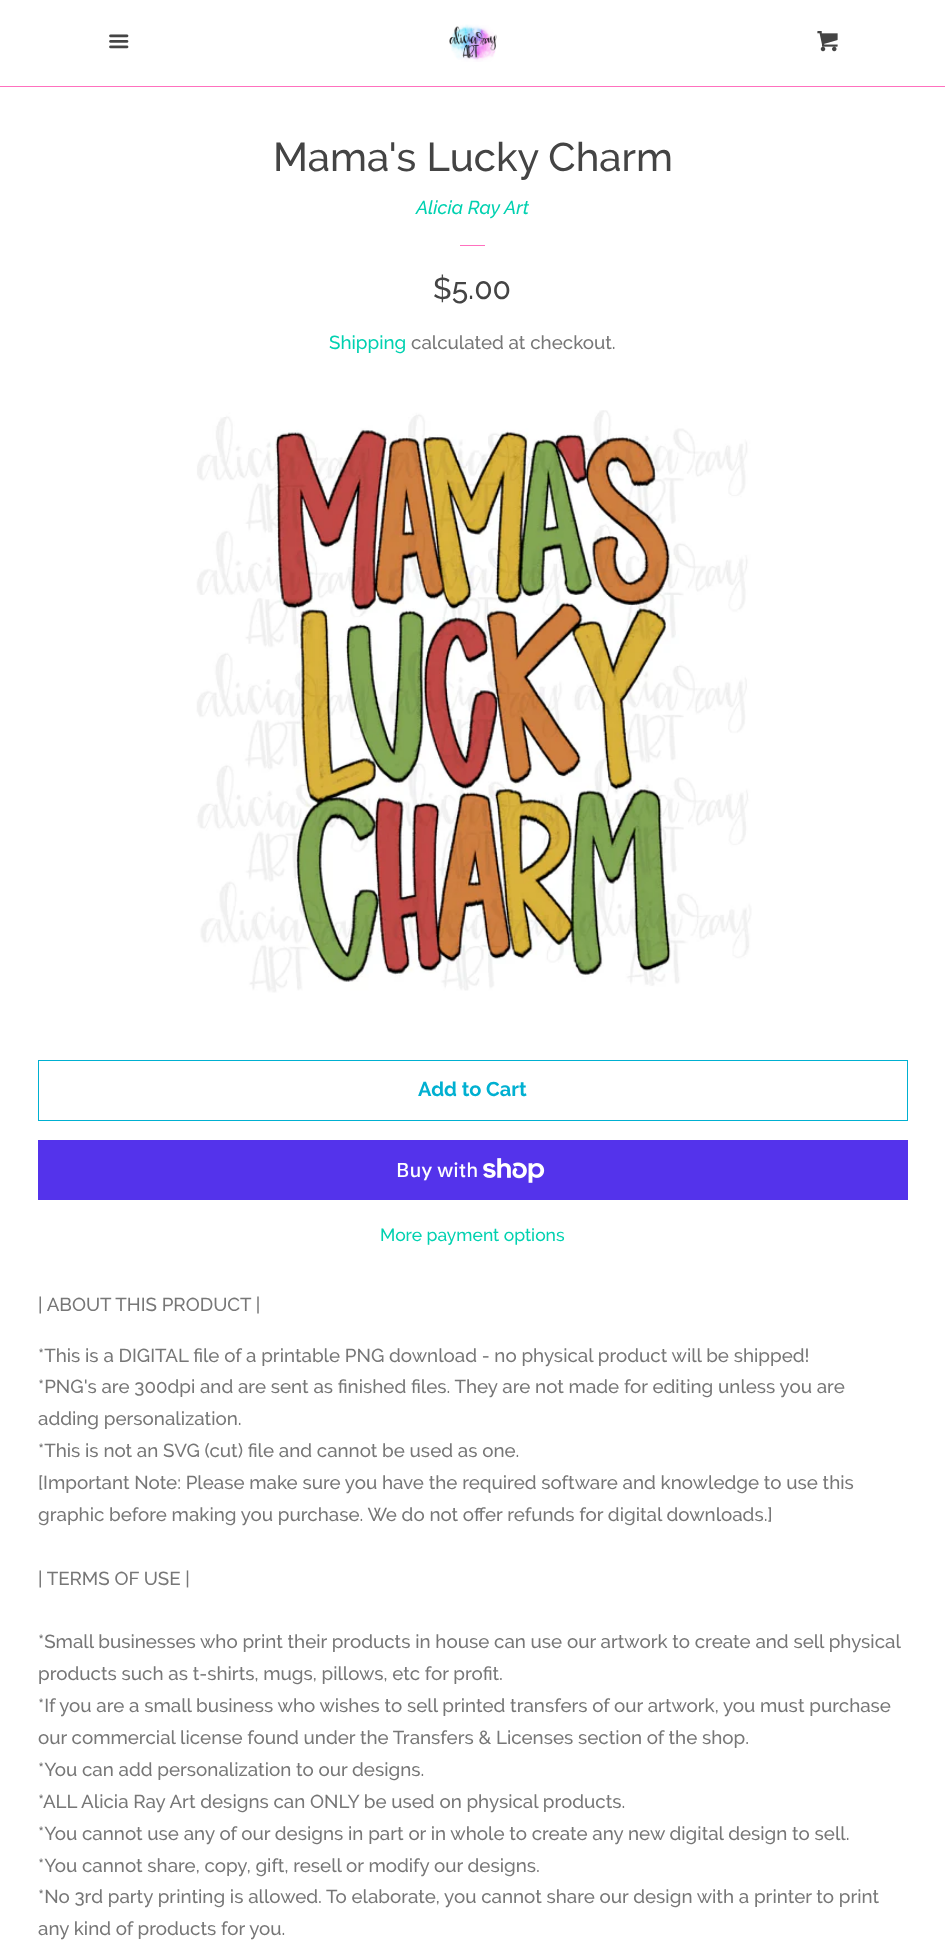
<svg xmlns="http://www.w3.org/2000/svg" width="945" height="1954">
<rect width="100%" height="100%" fill="#fff"/>
<rect y="86" width="945" height="1" fill="#ff70be"/>
<image x="109" y="34" width="20" height="15" href="media/1.png"/>
<image x="449" y="24" width="48" height="38" href="media/2.png"/>
<image x="817" y="31" width="21" height="21" href="media/3.png"/>
<text x="273" y="171" style="font-family:Raleway;font-size:40px;font-weight:500;fill:#444">Mama's Lucky Charm</text>
<text x="416" y="214" style="font-family:Raleway;font-size:18.75px;font-weight:500;font-style:italic;fill:#00d1b0">Alicia Ray Art</text>
<rect x="460" y="245" width="25" height="1" fill="#ff70be"/>
<text x="433" y="299" style="font-family:Raleway;font-size:30px;font-weight:500;fill:#444">$5.00</text>
<text x="329" y="349" style="font-family:Raleway;font-size:18.75px;font-weight:500;fill:#00d1b0">Shipping</text>
<text x="411" y="349" style="font-family:Raleway;font-size:18.75px;font-weight:500;fill:#777">calculated at checkout.</text>
<image x="196" y="410" width="556" height="583" href="media/4.png"/>
<rect x="38.5" y="1060.5" width="869" height="60" fill="none" stroke="#00b0d1"/>
<text x="418" y="1096" style="font-family:Raleway;font-size:20px;font-weight:bold;fill:#00b0d1">Add to Cart</text>
<rect x="38" y="1140" width="870" height="60" fill="#5433eb"/>
<text x="396" y="1177" style="font-family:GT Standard;font-size:20px;font-weight:500;fill:#fff">Buy with</text>
<image x="483" y="1158" width="62" height="25" href="media/5.png"/>
<text x="380" y="1241" style="font-family:Raleway;font-size:17.5px;font-weight:500;fill:#00d1b0">More payment options</text>
<text x="38" y="1311" style="font-family:Raleway;font-size:18.75px;font-weight:500;fill:#777">| ABOUT THIS PRODUCT |</text>
<text x="38" y="1362" style="font-family:Raleway;font-size:18.75px;font-weight:500;fill:#777">*This is a DIGITAL file of a printable PNG download - no physical product will be shipped!</text>
<text x="38" y="1393" style="font-family:Raleway;font-size:18.75px;font-weight:500;fill:#777">*PNG's are 300dpi and are sent as finished files. They are not made for editing unless you are</text>
<text x="38" y="1425" style="font-family:Raleway;font-size:18.75px;font-weight:500;fill:#777">adding personalization.</text>
<text x="38" y="1457" style="font-family:Raleway;font-size:18.75px;font-weight:500;fill:#777">*This is not an SVG (cut) file and cannot be used as one.</text>
<text x="38" y="1489" style="font-family:Raleway;font-size:18.75px;font-weight:500;fill:#777">[Important Note: Please make sure you have the required software and knowledge to use this</text>
<text x="38" y="1521" style="font-family:Raleway;font-size:18.75px;font-weight:500;fill:#777">graphic before making you purchase. We do not offer refunds for digital downloads.]</text>
<text x="38" y="1585" style="font-family:Raleway;font-size:18.75px;font-weight:500;fill:#777">| TERMS OF USE |</text>
<text x="38" y="1648" style="font-family:Raleway;font-size:18.75px;font-weight:500;fill:#777">*Small businesses who print their products in house can use our artwork to create and sell physical</text>
<text x="38" y="1680" style="font-family:Raleway;font-size:18.75px;font-weight:500;fill:#777">products such as t-shirts, mugs, pillows, etc for profit.</text>
<text x="38" y="1712" style="font-family:Raleway;font-size:18.75px;font-weight:500;fill:#777">*If you are a small business who wishes to sell printed transfers of our artwork, you must purchase</text>
<text x="38" y="1744" style="font-family:Raleway;font-size:18.75px;font-weight:500;fill:#777">our commercial license found under the Transfers &amp; Licenses section of the shop.</text>
<text x="38" y="1776" style="font-family:Raleway;font-size:18.75px;font-weight:500;fill:#777">*You can add personalization to our designs.</text>
<text x="38" y="1808" style="font-family:Raleway;font-size:18.75px;font-weight:500;fill:#777">*ALL Alicia Ray Art designs can ONLY be used on physical products.</text>
<text x="38" y="1840" style="font-family:Raleway;font-size:18.75px;font-weight:500;fill:#777">*You cannot use any of our designs in part or in whole to create any new digital design to sell.</text>
<text x="38" y="1872" style="font-family:Raleway;font-size:18.75px;font-weight:500;fill:#777">*You cannot share, copy, gift, resell or modify our designs.</text>
<text x="38" y="1903" style="font-family:Raleway;font-size:18.75px;font-weight:500;fill:#777">*No 3rd party printing is allowed. To elaborate, you cannot share our design with a printer to print</text>
<text x="38" y="1935" style="font-family:Raleway;font-size:18.75px;font-weight:500;fill:#777">any kind of products for you.</text>
</svg>
